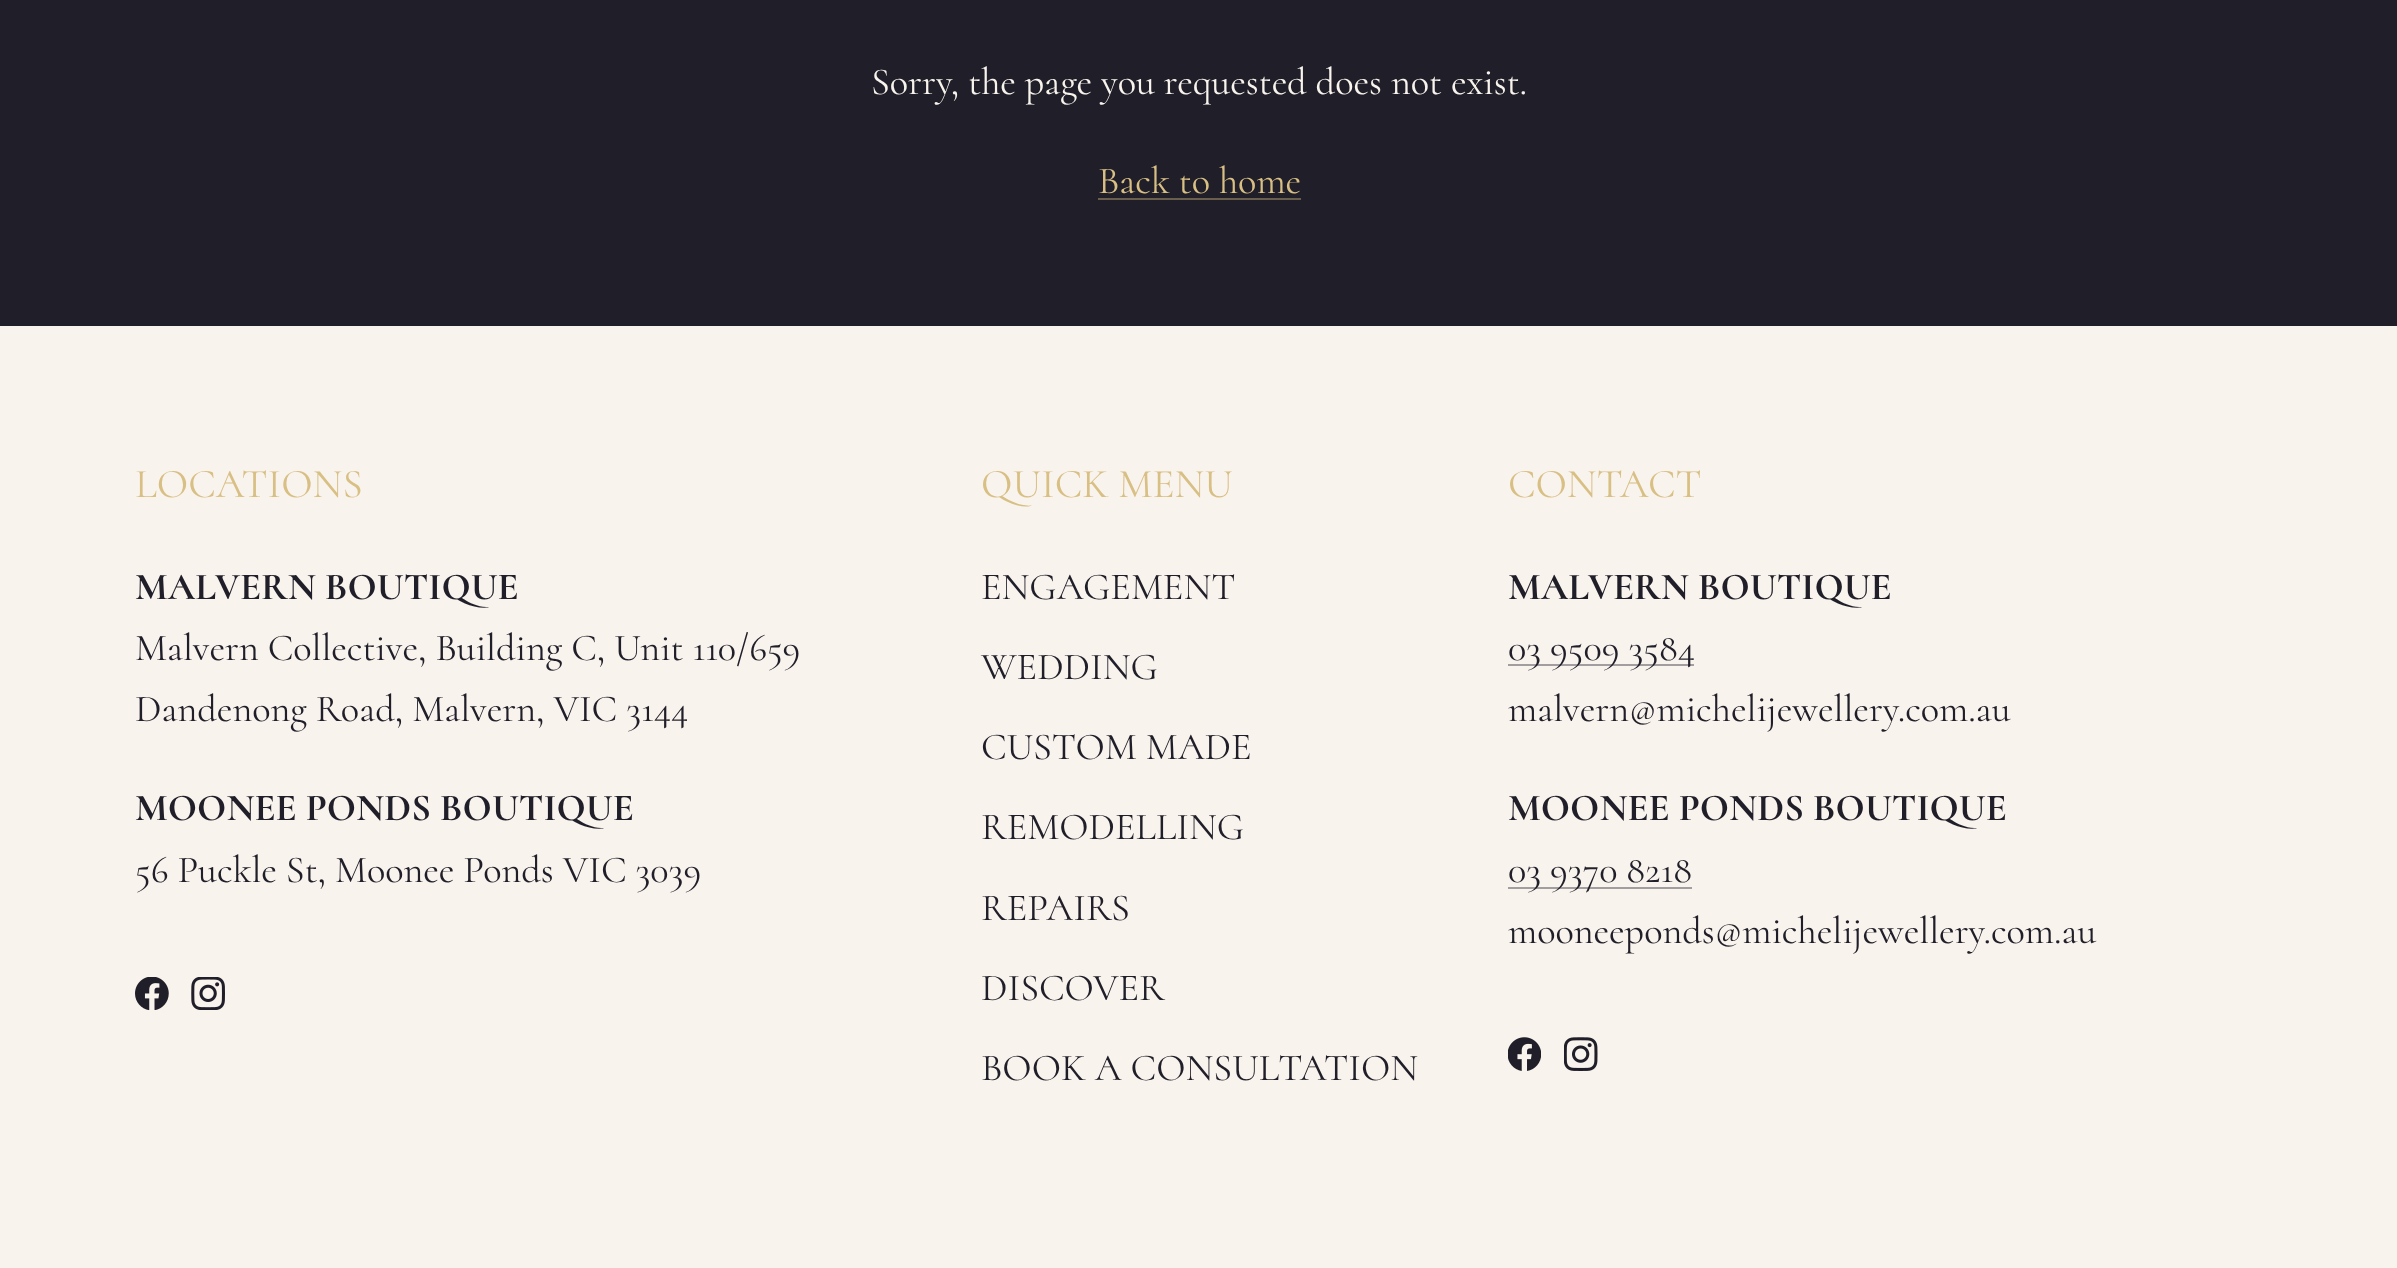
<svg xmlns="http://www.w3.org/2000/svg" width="2397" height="1268">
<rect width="100%" height="100%" fill="#201f29"/>
<text x="871" y="94" style="font-family:Cormorant;font-size:38.25px;fill:#f9f3ed">Sorry, the page you requested does not exist.</text>
<text x="1098" y="193" style="font-family:Cormorant;font-size:38.25px;fill:#d8bf84">Back to home</text>
<rect x="1098" y="198" width="203" height="2" fill="#6a5f4d"/>
<rect y="326" width="2397" height="942" fill="#f9f3ed"/>
<text x="135" y="497" style="font-family:Cormorant;font-size:41px;fill:#d8bf84">LOCATIONS</text>
<text x="135" y="599" style="font-family:Cormorant;font-size:38.25px;font-weight:bold;fill:#201f29">MALVERN BOUTIQUE</text>
<text x="135" y="660" style="font-family:Cormorant;font-size:38.25px;fill:#201f29">Malvern Collective, Building C, Unit 110/659</text>
<text x="135" y="721" style="font-family:Cormorant;font-size:38.25px;fill:#201f29">Dandenong Road, Malvern, VIC 3144</text>
<text x="135" y="820" style="font-family:Cormorant;font-size:38.25px;font-weight:bold;fill:#201f29">MOONEE PONDS BOUTIQUE</text>
<text x="135" y="882" style="font-family:Cormorant;font-size:38.25px;fill:#201f29">56 Puckle St, Moonee Ponds VIC 3039</text>
<image x="135" y="977" width="34" height="33" href="media/1.png"/>
<image x="191" y="977" width="34" height="33" href="media/2.png"/>
<text x="981" y="497" style="font-family:Cormorant;font-size:41px;fill:#d8bf84">QUICK MENU</text>
<text x="981" y="599" style="font-family:Cormorant;font-size:38.25px;fill:#201f29">ENGAGEMENT</text>
<text x="981" y="679" style="font-family:Cormorant;font-size:38.25px;fill:#201f29">WEDDING</text>
<text x="981" y="759" style="font-family:Cormorant;font-size:38.25px;fill:#201f29">CUSTOM MADE</text>
<text x="981" y="839" style="font-family:Cormorant;font-size:38.25px;fill:#201f29">REMODELLING</text>
<text x="981" y="920" style="font-family:Cormorant;font-size:38.25px;fill:#201f29">REPAIRS</text>
<text x="981" y="1000" style="font-family:Cormorant;font-size:38.25px;fill:#201f29">DISCOVER</text>
<text x="981" y="1080" style="font-family:Cormorant;font-size:38.25px;fill:#201f29">BOOK A CONSULTATION</text>
<text x="1508" y="497" style="font-family:Cormorant;font-size:41px;fill:#d8bf84">CONTACT</text>
<text x="1508" y="599" style="font-family:Cormorant;font-size:38.25px;font-weight:bold;fill:#201f29">MALVERN BOUTIQUE</text>
<rect x="1508" y="664" width="186" height="2" fill="#a29e9f"/>
<text x="1508" y="660" style="font-family:Cormorant;font-size:38.25px;fill:#201f29">03 9509 3584</text>
<text x="1508" y="721" style="font-family:Cormorant;font-size:38.25px;fill:#201f29">malvern@michelijewellery.com.au</text>
<text x="1508" y="820" style="font-family:Cormorant;font-size:38.25px;font-weight:bold;fill:#201f29">MOONEE PONDS BOUTIQUE</text>
<rect x="1508" y="887" width="184" height="2" fill="#a29e9f"/>
<text x="1508" y="882" style="font-family:Cormorant;font-size:38.25px;fill:#201f29">03 9370 8218</text>
<text x="1508" y="943" style="font-family:Cormorant;font-size:38.25px;fill:#201f29">mooneeponds@michelijewellery.com.au</text>
<image x="1508" y="1037" width="33" height="34" href="media/3.png"/>
<image x="1564" y="1037" width="34" height="34" href="media/4.png"/>
</svg>
